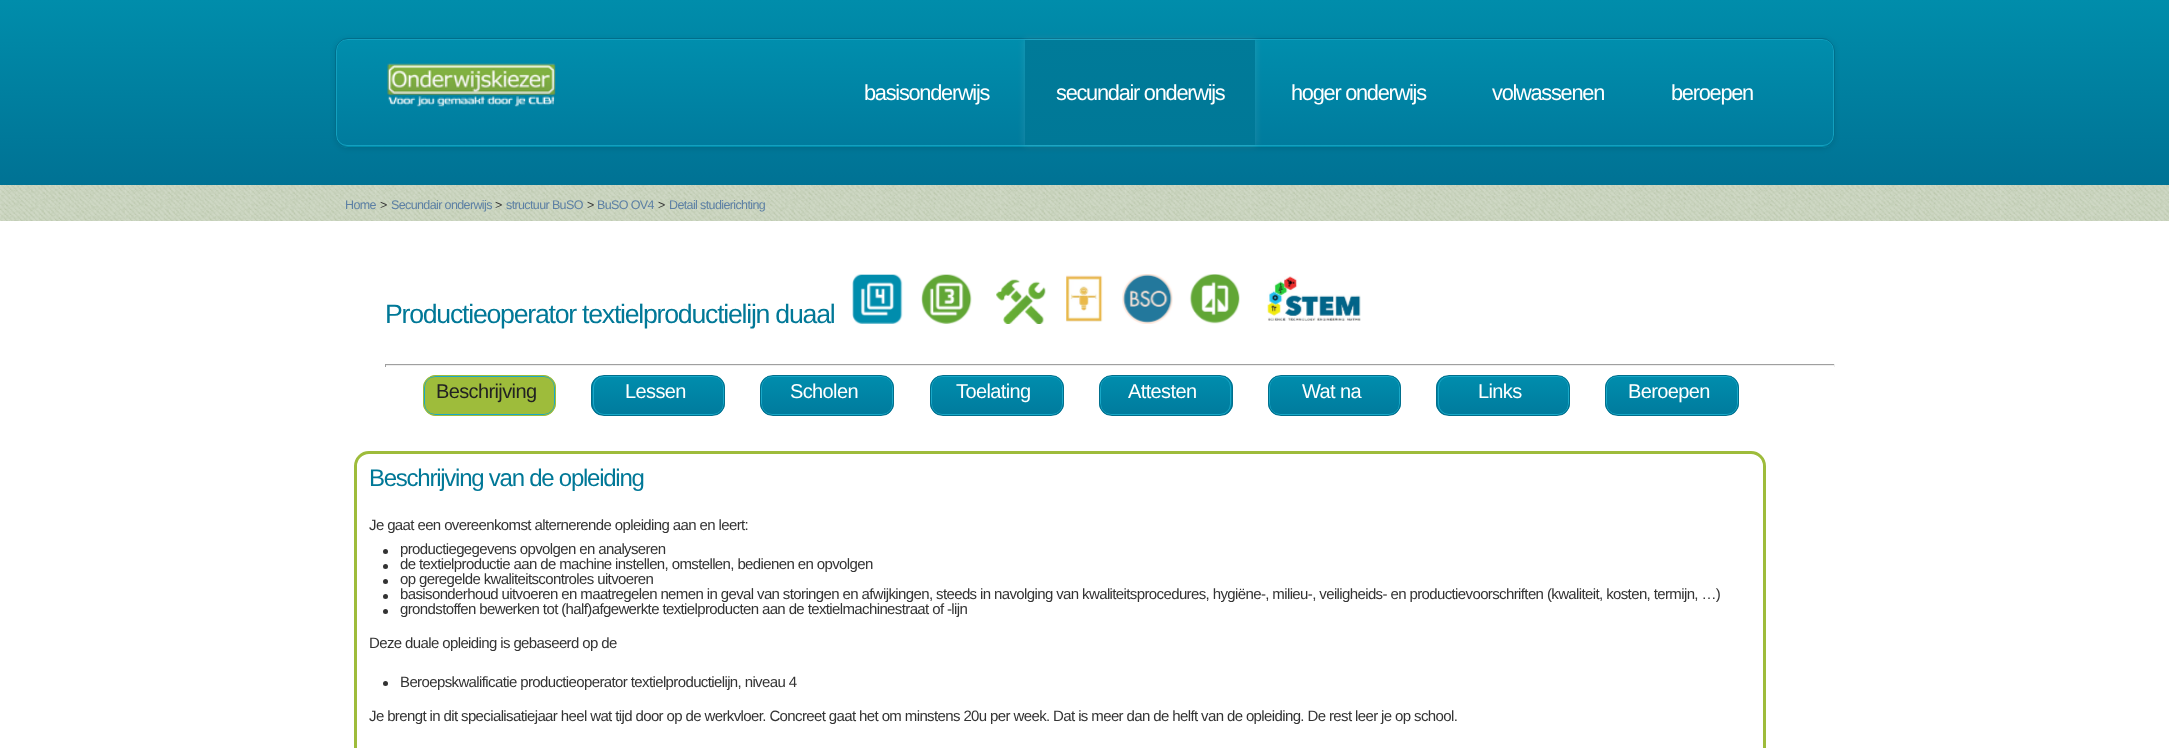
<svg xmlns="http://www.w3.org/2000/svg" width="2169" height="748">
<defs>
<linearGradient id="g1" gradientUnits="userSpaceOnUse" x1="0" y1="0" x2="0" y2="185"><stop offset="0" stop-color="#008dab"/><stop offset="1" stop-color="#007294"/></linearGradient>
<clipPath id="clip1"><rect x="335" y="38" width="1500" height="110" rx="13"/></clipPath>
<linearGradient id="g2" gradientUnits="userSpaceOnUse" x1="336" y1="39" x2="336" y2="146"><stop offset="0" stop-color="#008ead"/><stop offset="1" stop-color="#007b9d"/></linearGradient>
<linearGradient id="g3" gradientUnits="userSpaceOnUse" x1="336" y1="146" x2="336" y2="254"><stop offset="0" stop-color="#008ead"/><stop offset="1" stop-color="#007b9d"/></linearGradient>
<linearGradient id="g4" gradientUnits="userSpaceOnUse" x1="1025" y1="40" x2="1025" y2="145"><stop offset="0" stop-color="#007b99"/><stop offset="1" stop-color="#007897"/></linearGradient>
<clipPath id="clip2"><rect x="591" y="375" width="134" height="41" rx="13"/></clipPath>
<linearGradient id="g5" gradientUnits="userSpaceOnUse" x1="593" y1="376" x2="593" y2="415"><stop offset="0" stop-color="#008dad"/><stop offset="1" stop-color="#007b9d"/></linearGradient>
<clipPath id="clip3"><rect x="760" y="375" width="134" height="41" rx="13"/></clipPath>
<linearGradient id="g6" gradientUnits="userSpaceOnUse" x1="761" y1="376" x2="761" y2="415"><stop offset="0" stop-color="#008dad"/><stop offset="1" stop-color="#007b9d"/></linearGradient>
<clipPath id="clip4"><rect x="930" y="375" width="134" height="41" rx="13"/></clipPath>
<linearGradient id="g7" gradientUnits="userSpaceOnUse" x1="931" y1="376" x2="931" y2="415"><stop offset="0" stop-color="#008dad"/><stop offset="1" stop-color="#007b9d"/></linearGradient>
<clipPath id="clip5"><rect x="1099" y="375" width="134" height="41" rx="13"/></clipPath>
<linearGradient id="g8" gradientUnits="userSpaceOnUse" x1="1100" y1="376" x2="1100" y2="415"><stop offset="0" stop-color="#008dad"/><stop offset="1" stop-color="#007b9d"/></linearGradient>
<clipPath id="clip6"><rect x="1268" y="375" width="133" height="41" rx="13"/></clipPath>
<linearGradient id="g9" gradientUnits="userSpaceOnUse" x1="1269" y1="376" x2="1269" y2="415"><stop offset="0" stop-color="#008dad"/><stop offset="1" stop-color="#007b9d"/></linearGradient>
<clipPath id="clip7"><rect x="1436" y="375" width="134" height="41" rx="13"/></clipPath>
<linearGradient id="g10" gradientUnits="userSpaceOnUse" x1="1438" y1="376" x2="1438" y2="415"><stop offset="0" stop-color="#008dad"/><stop offset="1" stop-color="#007b9d"/></linearGradient>
<clipPath id="clip8"><rect x="1605" y="375" width="134" height="41" rx="13"/></clipPath>
<linearGradient id="g11" gradientUnits="userSpaceOnUse" x1="1606" y1="376" x2="1606" y2="415"><stop offset="0" stop-color="#008dad"/><stop offset="1" stop-color="#007b9d"/></linearGradient>
</defs>
<rect width="100%" height="100%" fill="#fff"/>
<rect width="2169" height="185" fill="url(#g1)"/>
<rect x="335" y="39" width="1500" height="110" rx="13" fill="#0000001a" filter="blur(2.5px)"/>
<g clip-path="url(#clip1)">
<rect x="335" y="39" width="1500" height="107" fill="url(#g2)"/>
<rect x="335" y="146" width="1500" height="2" fill="url(#g3)"/>
</g>
<rect x="336.5" y="39.5" width="1497" height="106" rx="10.5" fill="none" stroke="#12a0bf"/>
<rect x="335.5" y="38.5" width="1499" height="109" rx="12.5" fill="none" stroke="#006e8b"/>
<image x="387" y="63" width="169" height="44" href="media/1.png"/>
<text x="864" y="100" style="font-family:Liberation Sans;font-size:21.75px;letter-spacing:-1.25px;fill:#fff">basisonderwijs</text>
<rect x="1024" y="39" width="232" height="107" fill="#ffffff1a" filter="blur(3px)"/>
<rect x="1025" y="40" width="230" height="105" fill="url(#g4)"/>
<text x="1056" y="100" style="font-family:Liberation Sans;font-size:21.75px;letter-spacing:-1.25px;fill:#fff">secundair onderwijs</text>
<text x="1291" y="100" style="font-family:Liberation Sans;font-size:21.75px;letter-spacing:-1.25px;fill:#fff">hoger onderwijs</text>
<text x="1492" y="100" style="font-family:Liberation Sans;font-size:21.75px;letter-spacing:-1.25px;fill:#fff">volwassenen</text>
<text x="1671" y="100" style="font-family:Liberation Sans;font-size:21.75px;letter-spacing:-1.25px;fill:#fff">beroepen</text>
<image x="0" y="185" width="2169" height="36" href="media/2.png"/>
<text x="345" y="209" style="font-family:Liberation Sans;font-size:12.5px;letter-spacing:-0.62px;fill:#5d80a4">Home</text>
<text x="380" y="209" style="font-family:Liberation Sans;font-size:12.5px;letter-spacing:-0.62px;fill:#333">&gt;</text>
<text x="391" y="209" style="font-family:Liberation Sans;font-size:12.5px;letter-spacing:-0.62px;fill:#5d80a4">Secundair onderwijs</text>
<text x="495" y="209" style="font-family:Liberation Sans;font-size:12.5px;letter-spacing:-0.62px;fill:#333">&gt;</text>
<text x="506" y="209" style="font-family:Liberation Sans;font-size:12.5px;letter-spacing:-0.62px;fill:#5d80a4">structuur BuSO</text>
<text x="587" y="209" style="font-family:Liberation Sans;font-size:12.5px;letter-spacing:-0.62px;fill:#333">&gt;</text>
<text x="597" y="209" style="font-family:Liberation Sans;font-size:12.5px;letter-spacing:-0.62px;fill:#5d80a4">BuSO OV4</text>
<text x="658" y="209" style="font-family:Liberation Sans;font-size:12.5px;letter-spacing:-0.62px;fill:#333">&gt;</text>
<text x="669" y="209" style="font-family:Liberation Sans;font-size:12.5px;letter-spacing:-0.62px;fill:#5d80a4">Detail studierichting</text>
<text x="385" y="323" style="font-family:Liberation Sans;font-size:26.7px;letter-spacing:-1.25px;fill:#007897">Productieoperator textielproductielijn duaal</text>
<image x="852" y="274" width="51" height="50" href="media/3.png"/>
<image x="921" y="274" width="51" height="50" href="media/4.png"/>
<image x="996" y="279" width="50" height="45" href="media/5.png"/>
<image x="1066" y="275" width="37" height="47" href="media/6.png"/>
<image x="1122" y="274" width="51" height="50" href="media/7.png"/>
<image x="1189" y="274" width="51" height="50" href="media/8.png"/>
<image x="1267" y="276" width="94" height="45" href="media/9.png"/>
<rect x="385" y="364" width="1450" height="1" fill="#9f9f9f"/>
<rect x="1834" y="364" width="1" height="3" fill="#eee"/>
<rect x="385" y="365" width="1450" height="1" fill="#eee"/>
<rect x="385" y="364" width="1" height="3" fill="#9f9f9f"/>
<rect x="423" y="375" width="133" height="41" rx="13" fill="#9ebc3b"/>
<rect x="424.5" y="376.5" width="130" height="38" rx="10.5" fill="none" stroke="#18a8c8"/>
<rect x="423.5" y="375.5" width="132" height="40" rx="12.5" fill="none" stroke="#9ebc3b"/>
<text x="436" y="398" style="font-family:Liberation Sans;font-size:20px;letter-spacing:-0.62px;fill:#222">Beschrijving</text>
<g clip-path="url(#clip2)">
<rect x="591" y="376" width="134" height="39" fill="url(#g5)"/>
</g>
<rect x="593.5" y="376.5" width="130" height="38" rx="10.5" fill="none" stroke="#18a8c8"/>
<rect x="591.5" y="375.5" width="133" height="40" rx="12.5" fill="none" stroke="#006e8b"/>
<text x="625" y="398" style="font-family:Liberation Sans;font-size:20px;letter-spacing:-0.62px;fill:#fff">Lessen</text>
<g clip-path="url(#clip3)">
<rect x="760" y="376" width="134" height="39" fill="url(#g6)"/>
</g>
<rect x="761.5" y="376.5" width="131" height="38" rx="10.5" fill="none" stroke="#18a8c8"/>
<rect x="760.5" y="375.5" width="133" height="40" rx="12.5" fill="none" stroke="#006e8b"/>
<text x="790" y="398" style="font-family:Liberation Sans;font-size:20px;letter-spacing:-0.62px;fill:#fff">Scholen</text>
<g clip-path="url(#clip4)">
<rect x="930" y="376" width="134" height="39" fill="url(#g7)"/>
</g>
<rect x="931.5" y="376.5" width="131" height="38" rx="10.5" fill="none" stroke="#18a8c8"/>
<rect x="930.5" y="375.5" width="133" height="40" rx="12.5" fill="none" stroke="#006e8b"/>
<text x="956" y="398" style="font-family:Liberation Sans;font-size:20px;letter-spacing:-0.62px;fill:#fff">Toelating</text>
<g clip-path="url(#clip5)">
<rect x="1099" y="376" width="134" height="39" fill="url(#g8)"/>
</g>
<rect x="1100.5" y="376.5" width="130" height="38" rx="10.5" fill="none" stroke="#18a8c8"/>
<rect x="1099.5" y="375.5" width="133" height="40" rx="12.5" fill="none" stroke="#006e8b"/>
<text x="1128" y="398" style="font-family:Liberation Sans;font-size:20px;letter-spacing:-0.62px;fill:#fff">Attesten</text>
<g clip-path="url(#clip6)">
<rect x="1268" y="376" width="133" height="39" fill="url(#g9)"/>
</g>
<rect x="1269.5" y="376.5" width="130" height="38" rx="10.5" fill="none" stroke="#18a8c8"/>
<rect x="1268.5" y="375.5" width="132" height="40" rx="12.5" fill="none" stroke="#006e8b"/>
<text x="1302" y="398" style="font-family:Liberation Sans;font-size:20px;letter-spacing:-0.62px;fill:#fff">Wat na</text>
<g clip-path="url(#clip7)">
<rect x="1436" y="376" width="134" height="39" fill="url(#g10)"/>
</g>
<rect x="1438.5" y="376.5" width="130" height="38" rx="10.5" fill="none" stroke="#18a8c8"/>
<rect x="1436.5" y="375.5" width="133" height="40" rx="12.5" fill="none" stroke="#006e8b"/>
<text x="1478" y="398" style="font-family:Liberation Sans;font-size:20px;letter-spacing:-0.62px;fill:#fff">Links</text>
<g clip-path="url(#clip8)">
<rect x="1605" y="376" width="134" height="39" fill="url(#g11)"/>
</g>
<rect x="1606.5" y="376.5" width="131" height="38" rx="10.5" fill="none" stroke="#18a8c8"/>
<rect x="1605.5" y="375.5" width="133" height="40" rx="12.5" fill="none" stroke="#006e8b"/>
<text x="1628" y="398" style="font-family:Liberation Sans;font-size:20px;letter-spacing:-0.62px;fill:#fff">Beroepen</text>
<rect x="355.5" y="452.5" width="1409" height="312" rx="13.5" fill="none" stroke="#9ebc3b" stroke-width="3"/>
<text x="369" y="486" style="font-family:Liberation Sans;font-size:24px;letter-spacing:-1.25px;fill:#007897">Beschrijving van de opleiding</text>
<text x="369" y="530" style="font-family:Liberation Sans;font-size:15px;letter-spacing:-0.62px;fill:#333">Je gaat een overeenkomst alternerende opleiding aan en leert:</text>
<circle cx="385.5" cy="551.5" r="2.5" fill="#333"/>
<text x="400" y="554" style="font-family:Liberation Sans;font-size:15px;letter-spacing:-0.62px;fill:#333">productiegegevens opvolgen en analyseren</text>
<circle cx="385.5" cy="566.5" r="2.5" fill="#333"/>
<text x="400" y="569" style="font-family:Liberation Sans;font-size:15px;letter-spacing:-0.62px;fill:#333">de textielproductie aan de machine instellen, omstellen, bedienen en opvolgen</text>
<circle cx="385.5" cy="581.5" r="2.5" fill="#333"/>
<text x="400" y="584" style="font-family:Liberation Sans;font-size:15px;letter-spacing:-0.62px;fill:#333">op geregelde kwaliteitscontroles uitvoeren</text>
<circle cx="385.5" cy="596.5" r="2.5" fill="#333"/>
<text x="400" y="599" style="font-family:Liberation Sans;font-size:15px;letter-spacing:-0.62px;fill:#333">basisonderhoud uitvoeren en maatregelen nemen in geval van storingen en afwijkingen, steeds in navolging van kwaliteitsprocedures, hygiëne-, milieu-, veiligheids- en productievoorschriften (kwaliteit, kosten, termijn, …)</text>
<circle cx="385.5" cy="611.5" r="2.5" fill="#333"/>
<text x="400" y="614" style="font-family:Liberation Sans;font-size:15px;letter-spacing:-0.62px;fill:#333">grondstoffen bewerken tot (half)afgewerkte textielproducten aan de textielmachinestraat of -lijn</text>
<text x="369" y="648" style="font-family:Liberation Sans;font-size:15px;letter-spacing:-0.62px;fill:#333">Deze duale opleiding is gebaseerd op de</text>
<circle cx="385.5" cy="683.5" r="2.5" fill="#333"/>
<text x="400" y="687" style="font-family:Liberation Sans;font-size:15px;letter-spacing:-0.62px;fill:#333">Beroepskwalificatie productieoperator textielproductielijn, niveau 4</text>
<text x="369" y="721" style="font-family:Liberation Sans;font-size:15px;letter-spacing:-0.62px;fill:#333">Je brengt in dit specialisatiejaar heel wat tijd door op de werkvloer. Concreet gaat het om minstens 20u per week. Dat is meer dan de helft van de opleiding. De rest leer je op school.</text>
</svg>
